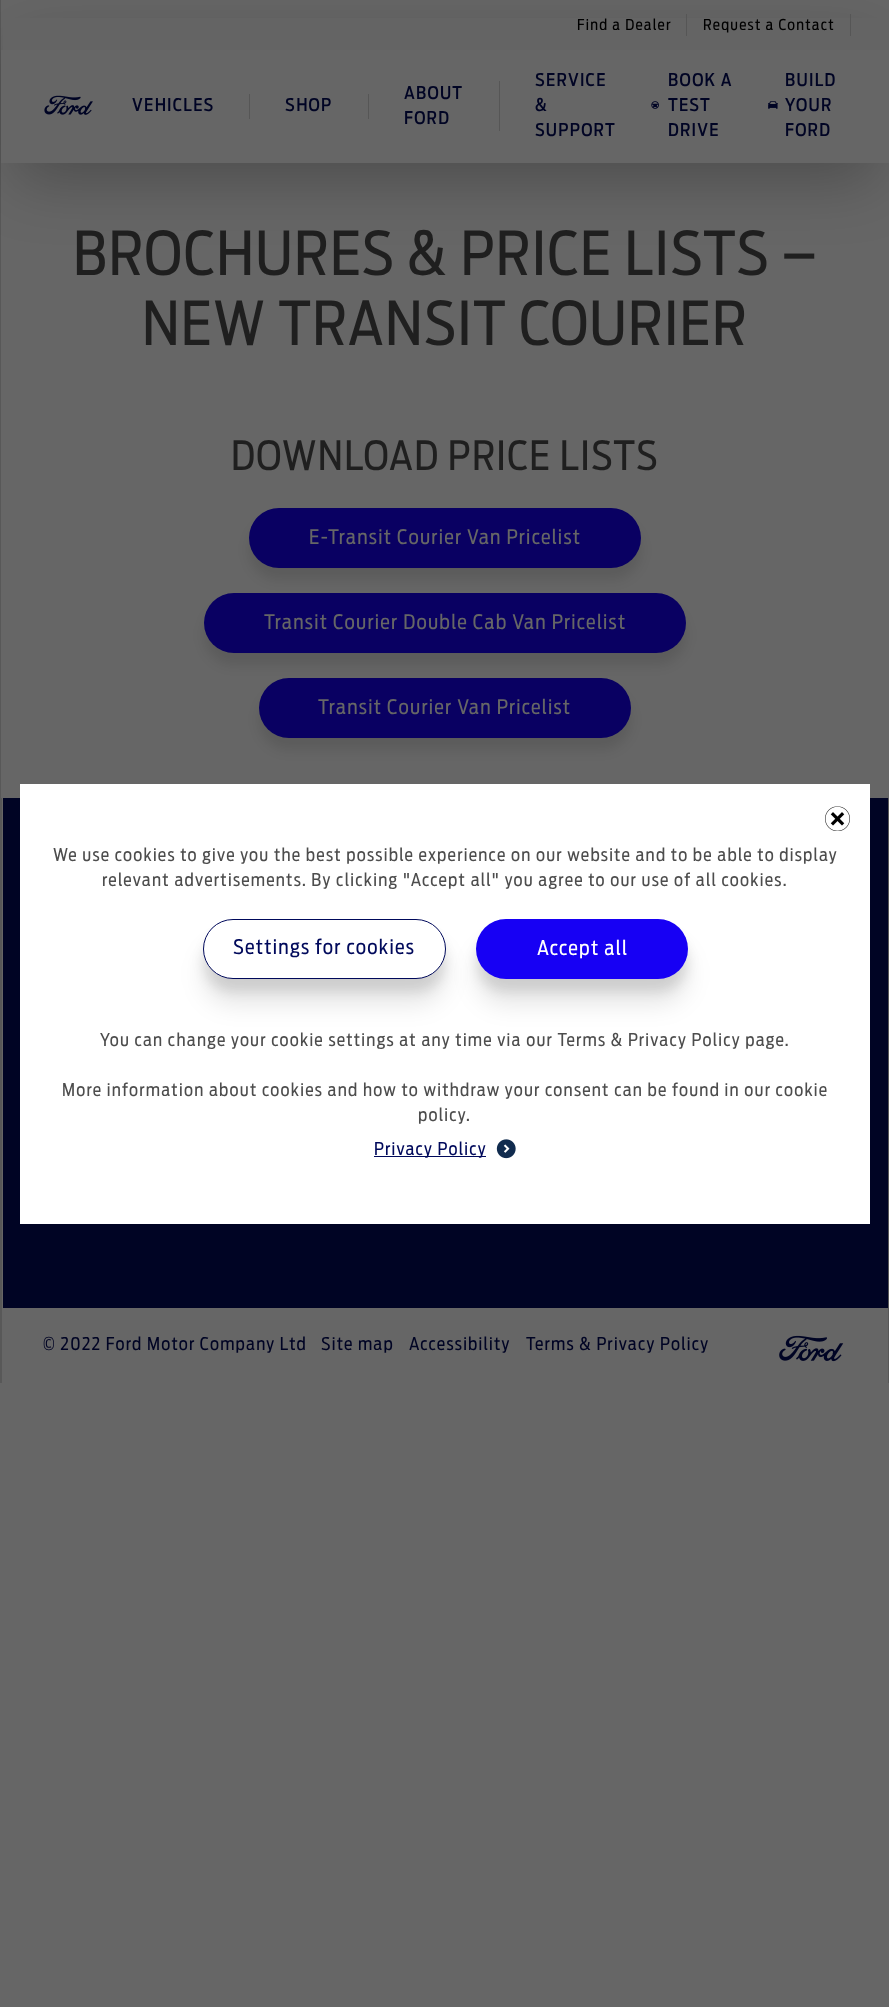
<svg xmlns="http://www.w3.org/2000/svg" width="889" height="2007">
<rect width="100%" height="100%" fill="#666"/>
<rect width="1" height="1383" fill="#585858"/>
<rect x="16" y="46" width="860" height="133" fill="#00000040" filter="blur(31px)"/>
<rect x="1" y="50" width="888" height="113" fill="#666"/>
<rect x="3" y="18" width="886" height="32" fill="#646464"/>
<rect x="686" y="14" width="1" height="22" fill="#565656"/>
<text x="577" y="30" style="font-family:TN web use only;font-size:15px;letter-spacing:1.25px;fill:#000">Find a Dealer</text>
<rect x="850" y="14" width="1" height="22" fill="#565656"/>
<text x="703" y="30" style="font-family:TN web use only;font-size:15px;letter-spacing:1.25px;fill:#000">Request a Contact</text>
<image x="44" y="95" width="49" height="20" href="media/1.png"/>
<rect x="249" y="94" width="1" height="25" fill="#565656"/>
<text x="132" y="111" style="font-family:TN web use only;font-size:17.5px;font-weight:500;letter-spacing:1.25px;fill:#000424">VEHICLES</text>
<rect x="368" y="94" width="1" height="25" fill="#565656"/>
<text x="285" y="111" style="font-family:TN web use only;font-size:17.5px;font-weight:500;letter-spacing:1.25px;fill:#000424">SHOP</text>
<rect x="499" y="81" width="1" height="50" fill="#565656"/>
<text x="404" y="99" style="font-family:TN web use only;font-size:17.5px;font-weight:500;letter-spacing:1.25px;fill:#000424">ABOUT</text>
<text x="404" y="124" style="font-family:TN web use only;font-size:17.5px;font-weight:500;letter-spacing:1.25px;fill:#000424">FORD</text>
<text x="535" y="86" style="font-family:TN web use only;font-size:17.5px;font-weight:500;letter-spacing:1.25px;fill:#000424">SERVICE</text>
<text x="535" y="111" style="font-family:TN web use only;font-size:17.5px;font-weight:500;letter-spacing:1.25px;fill:#000424">&amp;</text>
<text x="535" y="136" style="font-family:TN web use only;font-size:17.5px;font-weight:500;letter-spacing:1.25px;fill:#000424">SUPPORT</text>
<text x="668" y="86" style="font-family:TN web use only;font-size:17.5px;font-weight:500;letter-spacing:1.25px;fill:#000424">BOOK A</text>
<image x="651" y="101" width="8" height="8" href="media/2.png"/>
<text x="668" y="111" style="font-family:TN web use only;font-size:17.5px;font-weight:500;letter-spacing:1.25px;fill:#000424">TEST</text>
<text x="668" y="136" style="font-family:TN web use only;font-size:17.5px;font-weight:500;letter-spacing:1.25px;fill:#000424">DRIVE</text>
<text x="785" y="86" style="font-family:TN web use only;font-size:17.5px;font-weight:500;letter-spacing:1.25px;fill:#000424">BUILD</text>
<image x="768" y="101" width="10" height="8" href="media/3.png"/>
<text x="785" y="111" style="font-family:TN web use only;font-size:17.5px;font-weight:500;letter-spacing:1.25px;fill:#000424">YOUR</text>
<text x="785" y="136" style="font-family:TN web use only;font-size:17.5px;font-weight:500;letter-spacing:1.25px;fill:#000424">FORD</text>
<text x="73" y="275" style="font-family:TN web use only;font-size:60px;letter-spacing:1.25px;fill:#1f1f1f">BROCHURES &amp; PRICE LISTS –</text>
<text x="142" y="345" style="font-family:TN web use only;font-size:60px;letter-spacing:1.25px;fill:#1f1f1f">NEW TRANSIT COURIER</text>
<text x="231" y="470" style="font-family:TN web use only;font-size:40px;letter-spacing:1.25px;fill:#1f1f1f">DOWNLOAD PRICE LISTS</text>
<rect x="249" y="520" width="392" height="60" rx="30" fill="#0000001a" filter="blur(6px)"/>
<rect x="249" y="508" width="392" height="60" rx="30" fill="#090062"/>
<text x="309" y="544" style="font-family:TN web use only;font-size:20px;letter-spacing:1.25px;fill:#666">E-Transit Courier Van Pricelist</text>
<rect x="204" y="605" width="482" height="60" rx="30" fill="#0000001a" filter="blur(6px)"/>
<rect x="204" y="593" width="482" height="60" rx="30" fill="#090062"/>
<text x="264" y="629" style="font-family:TN web use only;font-size:20px;letter-spacing:1.25px;fill:#666">Transit Courier Double Cab Van Pricelist</text>
<rect x="259" y="690" width="372" height="60" rx="30" fill="#0000001a" filter="blur(6px)"/>
<rect x="259" y="678" width="372" height="60" rx="30" fill="#090062"/>
<text x="318" y="714" style="font-family:TN web use only;font-size:20px;letter-spacing:1.25px;fill:#666">Transit Courier Van Pricelist</text>
<rect x="888" y="798" width="1" height="585" fill="#585858"/>
<rect x="1" y="798" width="1" height="585" fill="#585858"/>
<rect x="3" y="798" width="885" height="510" fill="#000424"/>
<rect x="20" y="784" width="850" height="440" fill="#fff"/>
<image x="825" y="806" width="25" height="25" href="media/4.png"/>
<text x="53" y="861" style="font-family:TN web use only;font-size:17.5px;letter-spacing:1.25px;fill:#4d4d4d">We use cookies to give you the best possible experience on our website and to be able to display</text>
<text x="102" y="886" style="font-family:TN web use only;font-size:17.5px;letter-spacing:1.25px;fill:#4d4d4d">relevant advertisements. By clicking "Accept all" you agree to our use of all cookies.</text>
<rect x="203" y="931" width="243" height="60" rx="30" fill="#0000001a" filter="blur(6px)"/>
<rect x="203" y="944" width="243" height="60" rx="30" fill="#0000001a" filter="blur(12.5px)"/>
<rect x="203.5" y="919.5" width="242" height="59" rx="29.5" fill="#fff" stroke="#00095b"/>
<text x="233" y="954" style="font-family:TN web use only;font-size:20px;letter-spacing:1.25px;fill:#00095b">Settings for cookies</text>
<rect x="476" y="931" width="212" height="60" rx="30" fill="#0000001a" filter="blur(6px)"/>
<rect x="476" y="944" width="212" height="60" rx="30" fill="#0000001a" filter="blur(12.5px)"/>
<rect x="476" y="919" width="212" height="60" rx="30" fill="#1700f4"/>
<text x="537" y="955" style="font-family:TN web use only;font-size:20px;letter-spacing:1.25px;fill:#fff">Accept all</text>
<text x="100" y="1046" style="font-family:TN web use only;font-size:17.5px;letter-spacing:1.25px;fill:#4d4d4d">You can change your cookie settings at any time via our Terms &amp; Privacy Policy page.</text>
<text x="62" y="1096" style="font-family:TN web use only;font-size:17.5px;letter-spacing:1.25px;fill:#4d4d4d">More information about cookies and how to withdraw your consent can be found in our cookie</text>
<text x="418" y="1121" style="font-family:TN web use only;font-size:17.5px;letter-spacing:1.25px;fill:#4d4d4d">policy.</text>
<rect x="374" y="1156" width="112" height="1" fill="#00095b"/>
<text x="374" y="1155" style="font-family:TN web use only;font-size:17.5px;letter-spacing:1.25px;fill:#00095b">Privacy Policy</text>
<image x="496" y="1139" width="20" height="20" href="media/5.png"/>
<text x="43" y="1350" style="font-family:TN web use only;font-size:17.5px;letter-spacing:1.25px;fill:#000424">© 2022 Ford Motor Company Ltd</text>
<text x="321" y="1350" style="font-family:TN web use only;font-size:17.5px;letter-spacing:1.25px;fill:#000424">Site map</text>
<text x="409" y="1350" style="font-family:TN web use only;font-size:17.5px;letter-spacing:1.25px;fill:#000424">Accessibility</text>
<text x="526" y="1350" style="font-family:TN web use only;font-size:17.5px;letter-spacing:1.25px;fill:#000424">Terms &amp; Privacy Policy</text>
<image x="779" y="1335" width="65" height="27" href="media/6.png"/>
</svg>
